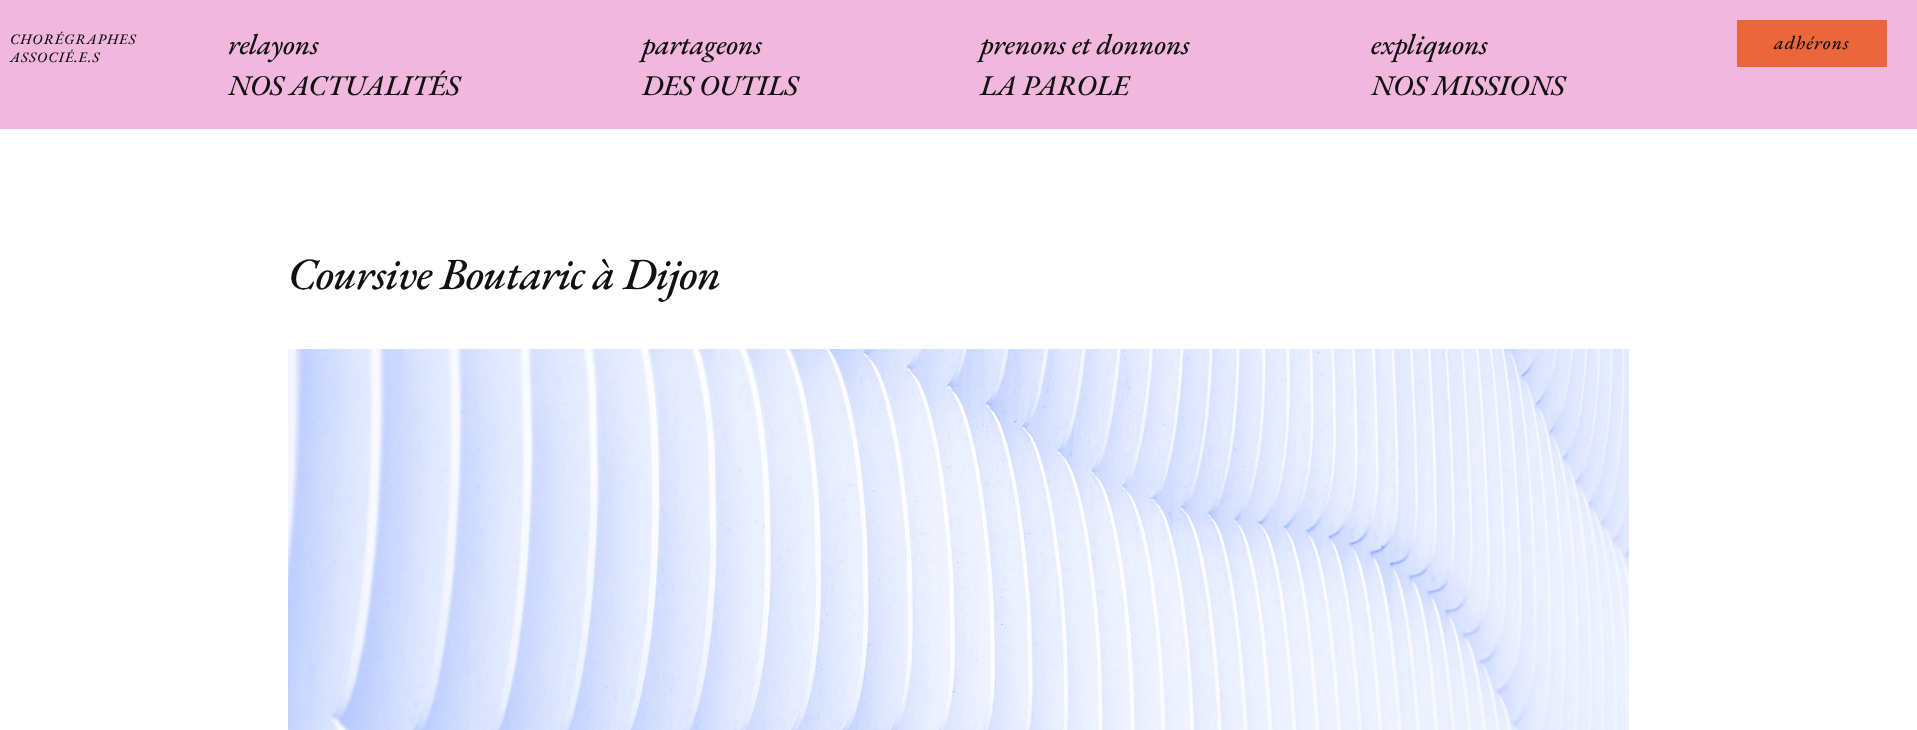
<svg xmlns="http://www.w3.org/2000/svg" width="1917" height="730">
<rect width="100%" height="100%" fill="#fff"/>
<rect width="1917" height="129" fill="#f2b7dc"/>
<text x="10" y="44" style="font-family:EB Garamond;font-size:14.5px;font-weight:500;font-style:italic;letter-spacing:1px;fill:#111">CHORÉGRAPHES</text>
<text x="10" y="62" style="font-family:EB Garamond;font-size:14.5px;font-weight:500;font-style:italic;letter-spacing:1px;fill:#111">ASSOCIÉ.E.S</text>
<text x="228" y="54" style="font-family:EB Garamond;font-size:28.75px;font-weight:500;font-style:italic;letter-spacing:-0.2px;fill:#111">relayons</text>
<text x="228" y="95" style="font-family:EB Garamond;font-size:28.75px;font-weight:500;font-style:italic;letter-spacing:-0.2px;fill:#111">NOS ACTUALITÉS</text>
<text x="642" y="54" style="font-family:EB Garamond;font-size:28.75px;font-weight:500;font-style:italic;letter-spacing:-0.2px;fill:#111">partageons</text>
<text x="642" y="95" style="font-family:EB Garamond;font-size:28.75px;font-weight:500;font-style:italic;letter-spacing:-0.2px;fill:#111">DES OUTILS</text>
<text x="980" y="54" style="font-family:EB Garamond;font-size:28.75px;font-weight:500;font-style:italic;letter-spacing:-0.2px;fill:#111">prenons et donnons</text>
<text x="980" y="95" style="font-family:EB Garamond;font-size:28.75px;font-weight:500;font-style:italic;letter-spacing:-0.2px;fill:#111">LA PAROLE</text>
<text x="1371" y="54" style="font-family:EB Garamond;font-size:28.75px;font-weight:500;font-style:italic;letter-spacing:-0.2px;fill:#111">expliquons</text>
<text x="1371" y="95" style="font-family:EB Garamond;font-size:28.75px;font-weight:500;font-style:italic;letter-spacing:-0.2px;fill:#111">NOS MISSIONS</text>
<rect x="1737" y="20" width="150" height="47" fill="#ec663b"/>
<text x="1774" y="49" style="font-family:EB Garamond;font-size:19px;font-weight:500;font-style:italic;letter-spacing:1px;fill:#111">adhérons</text>
<text x="288" y="289" style="font-family:EB Garamond;font-size:44.75px;font-weight:500;font-style:italic;letter-spacing:-0.9px;fill:#111">Coursive Boutaric à Dijon</text>
<image x="288" y="349" width="1341" height="381" href="media/1.png"/>
</svg>
